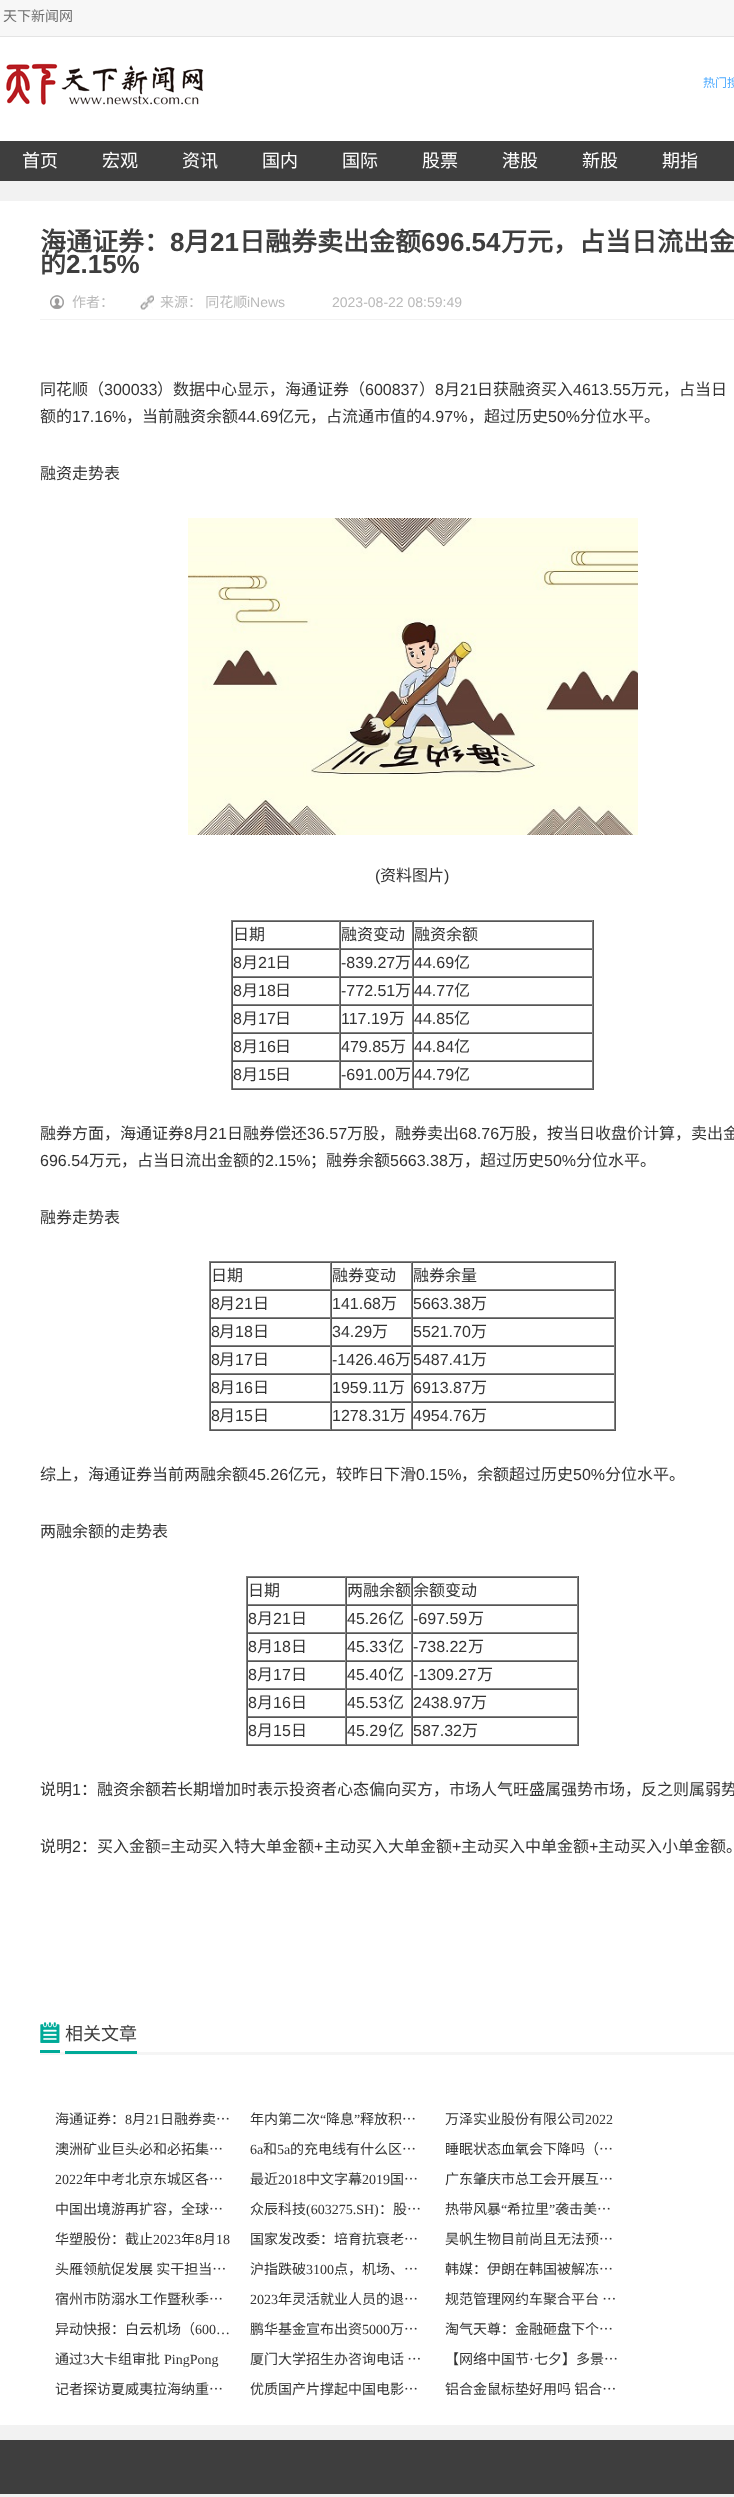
<svg xmlns="http://www.w3.org/2000/svg" width="734" height="2497">
<rect width="100%" height="100%" fill="#f2f2f2"/>
<rect y="37" width="734" height="104" fill="#fff"/>
<rect width="734" height="36" fill="#f7f7f7"/>
<rect y="36" width="734" height="1" fill="#e4e4e4"/>
<text x="3" y="21" style="font-family:Noto Sans CJK SC;font-size:14px;fill:#6f6f6f">天下新闻网</text>
<image x="6" y="63" width="198" height="42" href="media/1.png"/>
<text x="703" y="87" style="font-family:Noto Sans CJK SC;font-size:12px;fill:#51acff">热门搜</text>
<rect y="141" width="734" height="40" fill="#3e3e3e"/>
<text x="22" y="167" style="font-family:Noto Sans CJK SC;font-size:18px;fill:#fff">首页</text>
<text x="102" y="167" style="font-family:Noto Sans CJK SC;font-size:18px;fill:#fff">宏观</text>
<text x="182" y="167" style="font-family:Noto Sans CJK SC;font-size:18px;fill:#fff">资讯</text>
<text x="262" y="167" style="font-family:Noto Sans CJK SC;font-size:18px;fill:#fff">国内</text>
<text x="342" y="167" style="font-family:Noto Sans CJK SC;font-size:18px;fill:#fff">国际</text>
<text x="422" y="167" style="font-family:Noto Sans CJK SC;font-size:18px;fill:#fff">股票</text>
<text x="502" y="167" style="font-family:Noto Sans CJK SC;font-size:18px;fill:#fff">港股</text>
<text x="582" y="167" style="font-family:Noto Sans CJK SC;font-size:18px;fill:#fff">新股</text>
<text x="662" y="167" style="font-family:Noto Sans CJK SC;font-size:18px;fill:#fff">期指</text>
<rect y="201" width="734" height="2224" fill="#fff"/>
<rect x="40" y="319" width="694" height="1" fill="#f2f2f2"/>
<text x="40" y="251" style="font-family:Noto Sans CJK SC;font-size:26px;font-weight:bold;fill:#3e3e3e">海通证券：</text>
<text x="170" y="251" style="font-family:Liberation Sans;font-size:26px;font-weight:bold;fill:#3e3e3e">8</text>
<text x="184" y="251" style="font-family:Noto Sans CJK SC;font-size:26px;font-weight:bold;fill:#3e3e3e">月</text>
<text x="210" y="251" style="font-family:Liberation Sans;font-size:26px;font-weight:bold;fill:#3e3e3e">21</text>
<text x="239" y="251" style="font-family:Noto Sans CJK SC;font-size:26px;font-weight:bold;fill:#3e3e3e">日融券卖出金额</text>
<text x="421" y="251" style="font-family:Liberation Sans;font-size:26px;font-weight:bold;fill:#3e3e3e">696.54</text>
<text x="501" y="251" style="font-family:Noto Sans CJK SC;font-size:26px;font-weight:bold;fill:#3e3e3e">万元，占当日流出金</text>
<text x="40" y="273" style="font-family:Noto Sans CJK SC;font-size:26px;font-weight:bold;fill:#3e3e3e">的</text>
<text x="66" y="273" style="font-family:Liberation Sans;font-size:26px;font-weight:bold;fill:#3e3e3e">2.15%</text>
<image x="50" y="295" width="14" height="14" href="media/2.png"/>
<text x="72" y="307" style="font-family:Noto Sans CJK SC;font-size:14px;fill:#b9b9b9">作者：</text>
<image x="140" y="295" width="14" height="15" href="media/3.png"/>
<text x="160" y="307" style="font-family:Noto Sans CJK SC;font-size:14px;fill:#b9b9b9">来源： 同花顺</text>
<text x="247" y="307" style="font-family:Liberation Sans;font-size:14px;fill:#b9b9b9">iNews</text>
<text x="332" y="307" style="font-family:Liberation Sans;font-size:14px;fill:#b9b9b9">2023-08-22 08:59:49</text>
<text x="40" y="395" style="font-family:Noto Sans CJK SC;font-size:16px;fill:#333">同花顺（</text>
<text x="104" y="395" style="font-family:Liberation Sans;font-size:16px;fill:#333">300033</text>
<text x="157" y="395" style="font-family:Noto Sans CJK SC;font-size:16px;fill:#333">）数据中心显示，海通证券（</text>
<text x="365" y="395" style="font-family:Liberation Sans;font-size:16px;fill:#333">600837</text>
<text x="419" y="395" style="font-family:Noto Sans CJK SC;font-size:16px;fill:#333">）</text>
<text x="435" y="395" style="font-family:Liberation Sans;font-size:16px;fill:#333">8</text>
<text x="444" y="395" style="font-family:Noto Sans CJK SC;font-size:16px;fill:#333">月</text>
<text x="460" y="395" style="font-family:Liberation Sans;font-size:16px;fill:#333">21</text>
<text x="477" y="395" style="font-family:Noto Sans CJK SC;font-size:16px;fill:#333">日获融资买入</text>
<text x="573" y="395" style="font-family:Liberation Sans;font-size:16px;fill:#333">4613.55</text>
<text x="631" y="395" style="font-family:Noto Sans CJK SC;font-size:16px;fill:#333">万元，占当日</text>
<text x="40" y="422" style="font-family:Noto Sans CJK SC;font-size:16px;fill:#333">额的</text>
<text x="72" y="422" style="font-family:Liberation Sans;font-size:16px;fill:#333">17.16%</text>
<text x="126" y="422" style="font-family:Noto Sans CJK SC;font-size:16px;fill:#333">，当前融资余额</text>
<text x="238" y="422" style="font-family:Liberation Sans;font-size:16px;fill:#333">44.69</text>
<text x="278" y="422" style="font-family:Noto Sans CJK SC;font-size:16px;fill:#333">亿元，占流通市值的</text>
<text x="422" y="422" style="font-family:Liberation Sans;font-size:16px;fill:#333">4.97%</text>
<text x="468" y="422" style="font-family:Noto Sans CJK SC;font-size:16px;fill:#333">，超过历史</text>
<text x="548" y="422" style="font-family:Liberation Sans;font-size:16px;fill:#333">50%</text>
<text x="580" y="422" style="font-family:Noto Sans CJK SC;font-size:16px;fill:#333">分位水平。</text>
<text x="40" y="479" style="font-family:Noto Sans CJK SC;font-size:16px;fill:#333">融资走势表</text>
<image x="188" y="518" width="450" height="317" href="media/4.png"/>
<text x="375" y="881" style="font-family:Liberation Sans;font-size:16px;fill:#333">(</text>
<text x="380" y="881" style="font-family:Noto Sans CJK SC;font-size:16px;fill:#333">资料图片</text>
<text x="444" y="881" style="font-family:Liberation Sans;font-size:16px;fill:#333">)</text>
<rect x="231" y="920" width="363" height="1" fill="#808080"/>
<rect x="593" y="920" width="1" height="170" fill="#555"/>
<rect x="231" y="1089" width="363" height="1" fill="#555"/>
<rect x="231" y="920" width="1" height="170" fill="#808080"/>
<rect x="232" y="921" width="361" height="1" fill="#555"/>
<rect x="339" y="921" width="1" height="28" fill="#808080"/>
<rect x="232" y="948" width="108" height="1" fill="#808080"/>
<rect x="232" y="921" width="1" height="28" fill="#555"/>
<text x="233" y="940" style="font-family:Noto Sans CJK SC;font-size:16px;fill:#333">日期</text>
<rect x="412" y="921" width="1" height="28" fill="#808080"/>
<rect x="340" y="948" width="73" height="1" fill="#808080"/>
<rect x="340" y="921" width="1" height="28" fill="#555"/>
<text x="341" y="940" style="font-family:Noto Sans CJK SC;font-size:16px;fill:#333">融资变动</text>
<rect x="592" y="921" width="1" height="28" fill="#808080"/>
<rect x="413" y="948" width="180" height="1" fill="#808080"/>
<rect x="413" y="921" width="1" height="28" fill="#555"/>
<text x="414" y="940" style="font-family:Noto Sans CJK SC;font-size:16px;fill:#333">融资余额</text>
<rect x="232" y="949" width="361" height="1" fill="#555"/>
<rect x="339" y="949" width="1" height="28" fill="#808080"/>
<rect x="232" y="976" width="108" height="1" fill="#808080"/>
<rect x="232" y="949" width="1" height="28" fill="#555"/>
<text x="233" y="968" style="font-family:Liberation Sans;font-size:16px;fill:#333">8</text>
<text x="242" y="968" style="font-family:Noto Sans CJK SC;font-size:16px;fill:#333">月</text>
<text x="258" y="968" style="font-family:Liberation Sans;font-size:16px;fill:#333">21</text>
<text x="275" y="968" style="font-family:Noto Sans CJK SC;font-size:16px;fill:#333">日</text>
<rect x="412" y="949" width="1" height="28" fill="#808080"/>
<rect x="340" y="976" width="73" height="1" fill="#808080"/>
<rect x="340" y="949" width="1" height="28" fill="#555"/>
<text x="341" y="968" style="font-family:Liberation Sans;font-size:16px;fill:#333">-839.27</text>
<text x="395" y="968" style="font-family:Noto Sans CJK SC;font-size:16px;fill:#333">万</text>
<rect x="592" y="949" width="1" height="28" fill="#808080"/>
<rect x="413" y="976" width="180" height="1" fill="#808080"/>
<rect x="413" y="949" width="1" height="28" fill="#555"/>
<text x="414" y="968" style="font-family:Liberation Sans;font-size:16px;fill:#333">44.69</text>
<text x="454" y="968" style="font-family:Noto Sans CJK SC;font-size:16px;fill:#333">亿</text>
<rect x="232" y="977" width="361" height="1" fill="#555"/>
<rect x="339" y="977" width="1" height="28" fill="#808080"/>
<rect x="232" y="1004" width="108" height="1" fill="#808080"/>
<rect x="232" y="977" width="1" height="28" fill="#555"/>
<text x="233" y="996" style="font-family:Liberation Sans;font-size:16px;fill:#333">8</text>
<text x="242" y="996" style="font-family:Noto Sans CJK SC;font-size:16px;fill:#333">月</text>
<text x="258" y="996" style="font-family:Liberation Sans;font-size:16px;fill:#333">18</text>
<text x="275" y="996" style="font-family:Noto Sans CJK SC;font-size:16px;fill:#333">日</text>
<rect x="412" y="977" width="1" height="28" fill="#808080"/>
<rect x="340" y="1004" width="73" height="1" fill="#808080"/>
<rect x="340" y="977" width="1" height="28" fill="#555"/>
<text x="341" y="996" style="font-family:Liberation Sans;font-size:16px;fill:#333">-772.51</text>
<text x="395" y="996" style="font-family:Noto Sans CJK SC;font-size:16px;fill:#333">万</text>
<rect x="592" y="977" width="1" height="28" fill="#808080"/>
<rect x="413" y="1004" width="180" height="1" fill="#808080"/>
<rect x="413" y="977" width="1" height="28" fill="#555"/>
<text x="414" y="996" style="font-family:Liberation Sans;font-size:16px;fill:#333">44.77</text>
<text x="454" y="996" style="font-family:Noto Sans CJK SC;font-size:16px;fill:#333">亿</text>
<rect x="232" y="1005" width="361" height="1" fill="#555"/>
<rect x="339" y="1005" width="1" height="28" fill="#808080"/>
<rect x="232" y="1032" width="108" height="1" fill="#808080"/>
<rect x="232" y="1005" width="1" height="28" fill="#555"/>
<text x="233" y="1024" style="font-family:Liberation Sans;font-size:16px;fill:#333">8</text>
<text x="242" y="1024" style="font-family:Noto Sans CJK SC;font-size:16px;fill:#333">月</text>
<text x="258" y="1024" style="font-family:Liberation Sans;font-size:16px;fill:#333">17</text>
<text x="275" y="1024" style="font-family:Noto Sans CJK SC;font-size:16px;fill:#333">日</text>
<rect x="412" y="1005" width="1" height="28" fill="#808080"/>
<rect x="340" y="1032" width="73" height="1" fill="#808080"/>
<rect x="340" y="1005" width="1" height="28" fill="#555"/>
<text x="341" y="1024" style="font-family:Liberation Sans;font-size:16px;fill:#333">117.19</text>
<text x="389" y="1024" style="font-family:Noto Sans CJK SC;font-size:16px;fill:#333">万</text>
<rect x="592" y="1005" width="1" height="28" fill="#808080"/>
<rect x="413" y="1032" width="180" height="1" fill="#808080"/>
<rect x="413" y="1005" width="1" height="28" fill="#555"/>
<text x="414" y="1024" style="font-family:Liberation Sans;font-size:16px;fill:#333">44.85</text>
<text x="454" y="1024" style="font-family:Noto Sans CJK SC;font-size:16px;fill:#333">亿</text>
<rect x="232" y="1033" width="361" height="1" fill="#555"/>
<rect x="339" y="1033" width="1" height="28" fill="#808080"/>
<rect x="232" y="1060" width="108" height="1" fill="#808080"/>
<rect x="232" y="1033" width="1" height="28" fill="#555"/>
<text x="233" y="1052" style="font-family:Liberation Sans;font-size:16px;fill:#333">8</text>
<text x="242" y="1052" style="font-family:Noto Sans CJK SC;font-size:16px;fill:#333">月</text>
<text x="258" y="1052" style="font-family:Liberation Sans;font-size:16px;fill:#333">16</text>
<text x="275" y="1052" style="font-family:Noto Sans CJK SC;font-size:16px;fill:#333">日</text>
<rect x="412" y="1033" width="1" height="28" fill="#808080"/>
<rect x="340" y="1060" width="73" height="1" fill="#808080"/>
<rect x="340" y="1033" width="1" height="28" fill="#555"/>
<text x="341" y="1052" style="font-family:Liberation Sans;font-size:16px;fill:#333">479.85</text>
<text x="390" y="1052" style="font-family:Noto Sans CJK SC;font-size:16px;fill:#333">万</text>
<rect x="592" y="1033" width="1" height="28" fill="#808080"/>
<rect x="413" y="1060" width="180" height="1" fill="#808080"/>
<rect x="413" y="1033" width="1" height="28" fill="#555"/>
<text x="414" y="1052" style="font-family:Liberation Sans;font-size:16px;fill:#333">44.84</text>
<text x="454" y="1052" style="font-family:Noto Sans CJK SC;font-size:16px;fill:#333">亿</text>
<rect x="232" y="1061" width="361" height="1" fill="#555"/>
<rect x="339" y="1061" width="1" height="28" fill="#808080"/>
<rect x="232" y="1088" width="108" height="1" fill="#808080"/>
<rect x="232" y="1061" width="1" height="28" fill="#555"/>
<text x="233" y="1080" style="font-family:Liberation Sans;font-size:16px;fill:#333">8</text>
<text x="242" y="1080" style="font-family:Noto Sans CJK SC;font-size:16px;fill:#333">月</text>
<text x="258" y="1080" style="font-family:Liberation Sans;font-size:16px;fill:#333">15</text>
<text x="275" y="1080" style="font-family:Noto Sans CJK SC;font-size:16px;fill:#333">日</text>
<rect x="412" y="1061" width="1" height="28" fill="#808080"/>
<rect x="340" y="1088" width="73" height="1" fill="#808080"/>
<rect x="340" y="1061" width="1" height="28" fill="#555"/>
<text x="341" y="1080" style="font-family:Liberation Sans;font-size:16px;fill:#333">-691.00</text>
<text x="395" y="1080" style="font-family:Noto Sans CJK SC;font-size:16px;fill:#333">万</text>
<rect x="592" y="1061" width="1" height="28" fill="#808080"/>
<rect x="413" y="1088" width="180" height="1" fill="#808080"/>
<rect x="413" y="1061" width="1" height="28" fill="#555"/>
<text x="414" y="1080" style="font-family:Liberation Sans;font-size:16px;fill:#333">44.79</text>
<text x="454" y="1080" style="font-family:Noto Sans CJK SC;font-size:16px;fill:#333">亿</text>
<text x="40" y="1139" style="font-family:Noto Sans CJK SC;font-size:16px;fill:#333">融券方面，海通证券</text>
<text x="184" y="1139" style="font-family:Liberation Sans;font-size:16px;fill:#333">8</text>
<text x="193" y="1139" style="font-family:Noto Sans CJK SC;font-size:16px;fill:#333">月</text>
<text x="209" y="1139" style="font-family:Liberation Sans;font-size:16px;fill:#333">21</text>
<text x="227" y="1139" style="font-family:Noto Sans CJK SC;font-size:16px;fill:#333">日融券偿还</text>
<text x="307" y="1139" style="font-family:Liberation Sans;font-size:16px;fill:#333">36.57</text>
<text x="347" y="1139" style="font-family:Noto Sans CJK SC;font-size:16px;fill:#333">万股，融券卖出</text>
<text x="459" y="1139" style="font-family:Liberation Sans;font-size:16px;fill:#333">68.76</text>
<text x="499" y="1139" style="font-family:Noto Sans CJK SC;font-size:16px;fill:#333">万股，按当日收盘价计算，卖出金</text>
<text x="40" y="1166" style="font-family:Liberation Sans;font-size:16px;fill:#333">696.54</text>
<text x="89" y="1166" style="font-family:Noto Sans CJK SC;font-size:16px;fill:#333">万元，占当日流出金额的</text>
<text x="265" y="1166" style="font-family:Liberation Sans;font-size:16px;fill:#333">2.15%</text>
<text x="310" y="1166" style="font-family:Noto Sans CJK SC;font-size:16px;fill:#333">；融券余额</text>
<text x="390" y="1166" style="font-family:Liberation Sans;font-size:16px;fill:#333">5663.38</text>
<text x="448" y="1166" style="font-family:Noto Sans CJK SC;font-size:16px;fill:#333">万，超过历史</text>
<text x="544" y="1166" style="font-family:Liberation Sans;font-size:16px;fill:#333">50%</text>
<text x="576" y="1166" style="font-family:Noto Sans CJK SC;font-size:16px;fill:#333">分位水平。</text>
<text x="40" y="1223" style="font-family:Noto Sans CJK SC;font-size:16px;fill:#333">融券走势表</text>
<rect x="209" y="1261" width="407" height="1" fill="#808080"/>
<rect x="615" y="1261" width="1" height="170" fill="#555"/>
<rect x="209" y="1430" width="407" height="1" fill="#555"/>
<rect x="209" y="1261" width="1" height="170" fill="#808080"/>
<rect x="210" y="1262" width="405" height="1" fill="#555"/>
<rect x="330" y="1262" width="1" height="28" fill="#808080"/>
<rect x="210" y="1289" width="121" height="1" fill="#808080"/>
<rect x="210" y="1262" width="1" height="28" fill="#555"/>
<text x="211" y="1281" style="font-family:Noto Sans CJK SC;font-size:16px;fill:#333">日期</text>
<rect x="411" y="1262" width="1" height="28" fill="#808080"/>
<rect x="331" y="1289" width="81" height="1" fill="#808080"/>
<rect x="331" y="1262" width="1" height="28" fill="#555"/>
<text x="332" y="1281" style="font-family:Noto Sans CJK SC;font-size:16px;fill:#333">融券变动</text>
<rect x="614" y="1262" width="1" height="28" fill="#808080"/>
<rect x="412" y="1289" width="203" height="1" fill="#808080"/>
<rect x="412" y="1262" width="1" height="28" fill="#555"/>
<text x="413" y="1281" style="font-family:Noto Sans CJK SC;font-size:16px;fill:#333">融券余量</text>
<rect x="210" y="1290" width="405" height="1" fill="#555"/>
<rect x="330" y="1290" width="1" height="28" fill="#808080"/>
<rect x="210" y="1317" width="121" height="1" fill="#808080"/>
<rect x="210" y="1290" width="1" height="28" fill="#555"/>
<text x="211" y="1309" style="font-family:Liberation Sans;font-size:16px;fill:#333">8</text>
<text x="219" y="1309" style="font-family:Noto Sans CJK SC;font-size:16px;fill:#333">月</text>
<text x="235" y="1309" style="font-family:Liberation Sans;font-size:16px;fill:#333">21</text>
<text x="253" y="1309" style="font-family:Noto Sans CJK SC;font-size:16px;fill:#333">日</text>
<rect x="411" y="1290" width="1" height="28" fill="#808080"/>
<rect x="331" y="1317" width="81" height="1" fill="#808080"/>
<rect x="331" y="1290" width="1" height="28" fill="#555"/>
<text x="332" y="1309" style="font-family:Liberation Sans;font-size:16px;fill:#333">141.68</text>
<text x="381" y="1309" style="font-family:Noto Sans CJK SC;font-size:16px;fill:#333">万</text>
<rect x="614" y="1290" width="1" height="28" fill="#808080"/>
<rect x="412" y="1317" width="203" height="1" fill="#808080"/>
<rect x="412" y="1290" width="1" height="28" fill="#555"/>
<text x="413" y="1309" style="font-family:Liberation Sans;font-size:16px;fill:#333">5663.38</text>
<text x="471" y="1309" style="font-family:Noto Sans CJK SC;font-size:16px;fill:#333">万</text>
<rect x="210" y="1318" width="405" height="1" fill="#555"/>
<rect x="330" y="1318" width="1" height="28" fill="#808080"/>
<rect x="210" y="1345" width="121" height="1" fill="#808080"/>
<rect x="210" y="1318" width="1" height="28" fill="#555"/>
<text x="211" y="1337" style="font-family:Liberation Sans;font-size:16px;fill:#333">8</text>
<text x="219" y="1337" style="font-family:Noto Sans CJK SC;font-size:16px;fill:#333">月</text>
<text x="235" y="1337" style="font-family:Liberation Sans;font-size:16px;fill:#333">18</text>
<text x="253" y="1337" style="font-family:Noto Sans CJK SC;font-size:16px;fill:#333">日</text>
<rect x="411" y="1318" width="1" height="28" fill="#808080"/>
<rect x="331" y="1345" width="81" height="1" fill="#808080"/>
<rect x="331" y="1318" width="1" height="28" fill="#555"/>
<text x="332" y="1337" style="font-family:Liberation Sans;font-size:16px;fill:#333">34.29</text>
<text x="372" y="1337" style="font-family:Noto Sans CJK SC;font-size:16px;fill:#333">万</text>
<rect x="614" y="1318" width="1" height="28" fill="#808080"/>
<rect x="412" y="1345" width="203" height="1" fill="#808080"/>
<rect x="412" y="1318" width="1" height="28" fill="#555"/>
<text x="413" y="1337" style="font-family:Liberation Sans;font-size:16px;fill:#333">5521.70</text>
<text x="471" y="1337" style="font-family:Noto Sans CJK SC;font-size:16px;fill:#333">万</text>
<rect x="210" y="1346" width="405" height="1" fill="#555"/>
<rect x="330" y="1346" width="1" height="28" fill="#808080"/>
<rect x="210" y="1373" width="121" height="1" fill="#808080"/>
<rect x="210" y="1346" width="1" height="28" fill="#555"/>
<text x="211" y="1365" style="font-family:Liberation Sans;font-size:16px;fill:#333">8</text>
<text x="219" y="1365" style="font-family:Noto Sans CJK SC;font-size:16px;fill:#333">月</text>
<text x="235" y="1365" style="font-family:Liberation Sans;font-size:16px;fill:#333">17</text>
<text x="253" y="1365" style="font-family:Noto Sans CJK SC;font-size:16px;fill:#333">日</text>
<rect x="411" y="1346" width="1" height="28" fill="#808080"/>
<rect x="331" y="1373" width="81" height="1" fill="#808080"/>
<rect x="331" y="1346" width="1" height="28" fill="#555"/>
<text x="332" y="1365" style="font-family:Liberation Sans;font-size:16px;fill:#333">-1426.46</text>
<text x="395" y="1365" style="font-family:Noto Sans CJK SC;font-size:16px;fill:#333">万</text>
<rect x="614" y="1346" width="1" height="28" fill="#808080"/>
<rect x="412" y="1373" width="203" height="1" fill="#808080"/>
<rect x="412" y="1346" width="1" height="28" fill="#555"/>
<text x="413" y="1365" style="font-family:Liberation Sans;font-size:16px;fill:#333">5487.41</text>
<text x="471" y="1365" style="font-family:Noto Sans CJK SC;font-size:16px;fill:#333">万</text>
<rect x="210" y="1374" width="405" height="1" fill="#555"/>
<rect x="330" y="1374" width="1" height="28" fill="#808080"/>
<rect x="210" y="1401" width="121" height="1" fill="#808080"/>
<rect x="210" y="1374" width="1" height="28" fill="#555"/>
<text x="211" y="1393" style="font-family:Liberation Sans;font-size:16px;fill:#333">8</text>
<text x="219" y="1393" style="font-family:Noto Sans CJK SC;font-size:16px;fill:#333">月</text>
<text x="235" y="1393" style="font-family:Liberation Sans;font-size:16px;fill:#333">16</text>
<text x="253" y="1393" style="font-family:Noto Sans CJK SC;font-size:16px;fill:#333">日</text>
<rect x="411" y="1374" width="1" height="28" fill="#808080"/>
<rect x="331" y="1401" width="81" height="1" fill="#808080"/>
<rect x="331" y="1374" width="1" height="28" fill="#555"/>
<text x="332" y="1393" style="font-family:Liberation Sans;font-size:16px;fill:#333">1959.11</text>
<text x="389" y="1393" style="font-family:Noto Sans CJK SC;font-size:16px;fill:#333">万</text>
<rect x="614" y="1374" width="1" height="28" fill="#808080"/>
<rect x="412" y="1401" width="203" height="1" fill="#808080"/>
<rect x="412" y="1374" width="1" height="28" fill="#555"/>
<text x="413" y="1393" style="font-family:Liberation Sans;font-size:16px;fill:#333">6913.87</text>
<text x="471" y="1393" style="font-family:Noto Sans CJK SC;font-size:16px;fill:#333">万</text>
<rect x="210" y="1402" width="405" height="1" fill="#555"/>
<rect x="330" y="1402" width="1" height="28" fill="#808080"/>
<rect x="210" y="1429" width="121" height="1" fill="#808080"/>
<rect x="210" y="1402" width="1" height="28" fill="#555"/>
<text x="211" y="1421" style="font-family:Liberation Sans;font-size:16px;fill:#333">8</text>
<text x="219" y="1421" style="font-family:Noto Sans CJK SC;font-size:16px;fill:#333">月</text>
<text x="235" y="1421" style="font-family:Liberation Sans;font-size:16px;fill:#333">15</text>
<text x="253" y="1421" style="font-family:Noto Sans CJK SC;font-size:16px;fill:#333">日</text>
<rect x="411" y="1402" width="1" height="28" fill="#808080"/>
<rect x="331" y="1429" width="81" height="1" fill="#808080"/>
<rect x="331" y="1402" width="1" height="28" fill="#555"/>
<text x="332" y="1421" style="font-family:Liberation Sans;font-size:16px;fill:#333">1278.31</text>
<text x="390" y="1421" style="font-family:Noto Sans CJK SC;font-size:16px;fill:#333">万</text>
<rect x="614" y="1402" width="1" height="28" fill="#808080"/>
<rect x="412" y="1429" width="203" height="1" fill="#808080"/>
<rect x="412" y="1402" width="1" height="28" fill="#555"/>
<text x="413" y="1421" style="font-family:Liberation Sans;font-size:16px;fill:#333">4954.76</text>
<text x="471" y="1421" style="font-family:Noto Sans CJK SC;font-size:16px;fill:#333">万</text>
<text x="40" y="1480" style="font-family:Noto Sans CJK SC;font-size:16px;fill:#333">综上，海通证券当前两融余额</text>
<text x="248" y="1480" style="font-family:Liberation Sans;font-size:16px;fill:#333">45.26</text>
<text x="288" y="1480" style="font-family:Noto Sans CJK SC;font-size:16px;fill:#333">亿元，较昨日下滑</text>
<text x="416" y="1480" style="font-family:Liberation Sans;font-size:16px;fill:#333">0.15%</text>
<text x="461" y="1480" style="font-family:Noto Sans CJK SC;font-size:16px;fill:#333">，余额超过历史</text>
<text x="573" y="1480" style="font-family:Liberation Sans;font-size:16px;fill:#333">50%</text>
<text x="605" y="1480" style="font-family:Noto Sans CJK SC;font-size:16px;fill:#333">分位水平。</text>
<text x="40" y="1537" style="font-family:Noto Sans CJK SC;font-size:16px;fill:#333">两融余额的走势表</text>
<rect x="246" y="1576" width="333" height="1" fill="#808080"/>
<rect x="578" y="1576" width="1" height="170" fill="#555"/>
<rect x="246" y="1745" width="333" height="1" fill="#555"/>
<rect x="246" y="1576" width="1" height="170" fill="#808080"/>
<rect x="247" y="1577" width="331" height="1" fill="#555"/>
<rect x="345" y="1577" width="1" height="28" fill="#808080"/>
<rect x="247" y="1604" width="99" height="1" fill="#808080"/>
<rect x="247" y="1577" width="1" height="28" fill="#555"/>
<text x="248" y="1596" style="font-family:Noto Sans CJK SC;font-size:16px;fill:#333">日期</text>
<rect x="411" y="1577" width="1" height="28" fill="#808080"/>
<rect x="346" y="1604" width="66" height="1" fill="#808080"/>
<rect x="346" y="1577" width="1" height="28" fill="#555"/>
<text x="347" y="1596" style="font-family:Noto Sans CJK SC;font-size:16px;fill:#333">两融余额</text>
<rect x="577" y="1577" width="1" height="28" fill="#808080"/>
<rect x="412" y="1604" width="166" height="1" fill="#808080"/>
<rect x="412" y="1577" width="1" height="28" fill="#555"/>
<text x="413" y="1596" style="font-family:Noto Sans CJK SC;font-size:16px;fill:#333">余额变动</text>
<rect x="247" y="1605" width="331" height="1" fill="#555"/>
<rect x="345" y="1605" width="1" height="28" fill="#808080"/>
<rect x="247" y="1632" width="99" height="1" fill="#808080"/>
<rect x="247" y="1605" width="1" height="28" fill="#555"/>
<text x="248" y="1624" style="font-family:Liberation Sans;font-size:16px;fill:#333">8</text>
<text x="257" y="1624" style="font-family:Noto Sans CJK SC;font-size:16px;fill:#333">月</text>
<text x="273" y="1624" style="font-family:Liberation Sans;font-size:16px;fill:#333">21</text>
<text x="291" y="1624" style="font-family:Noto Sans CJK SC;font-size:16px;fill:#333">日</text>
<rect x="411" y="1605" width="1" height="28" fill="#808080"/>
<rect x="346" y="1632" width="66" height="1" fill="#808080"/>
<rect x="346" y="1605" width="1" height="28" fill="#555"/>
<text x="347" y="1624" style="font-family:Liberation Sans;font-size:16px;fill:#333">45.26</text>
<text x="388" y="1624" style="font-family:Noto Sans CJK SC;font-size:16px;fill:#333">亿</text>
<rect x="577" y="1605" width="1" height="28" fill="#808080"/>
<rect x="412" y="1632" width="166" height="1" fill="#808080"/>
<rect x="412" y="1605" width="1" height="28" fill="#555"/>
<text x="413" y="1624" style="font-family:Liberation Sans;font-size:16px;fill:#333">-697.59</text>
<text x="468" y="1624" style="font-family:Noto Sans CJK SC;font-size:16px;fill:#333">万</text>
<rect x="247" y="1633" width="331" height="1" fill="#555"/>
<rect x="345" y="1633" width="1" height="28" fill="#808080"/>
<rect x="247" y="1660" width="99" height="1" fill="#808080"/>
<rect x="247" y="1633" width="1" height="28" fill="#555"/>
<text x="248" y="1652" style="font-family:Liberation Sans;font-size:16px;fill:#333">8</text>
<text x="257" y="1652" style="font-family:Noto Sans CJK SC;font-size:16px;fill:#333">月</text>
<text x="273" y="1652" style="font-family:Liberation Sans;font-size:16px;fill:#333">18</text>
<text x="291" y="1652" style="font-family:Noto Sans CJK SC;font-size:16px;fill:#333">日</text>
<rect x="411" y="1633" width="1" height="28" fill="#808080"/>
<rect x="346" y="1660" width="66" height="1" fill="#808080"/>
<rect x="346" y="1633" width="1" height="28" fill="#555"/>
<text x="347" y="1652" style="font-family:Liberation Sans;font-size:16px;fill:#333">45.33</text>
<text x="388" y="1652" style="font-family:Noto Sans CJK SC;font-size:16px;fill:#333">亿</text>
<rect x="577" y="1633" width="1" height="28" fill="#808080"/>
<rect x="412" y="1660" width="166" height="1" fill="#808080"/>
<rect x="412" y="1633" width="1" height="28" fill="#555"/>
<text x="413" y="1652" style="font-family:Liberation Sans;font-size:16px;fill:#333">-738.22</text>
<text x="468" y="1652" style="font-family:Noto Sans CJK SC;font-size:16px;fill:#333">万</text>
<rect x="247" y="1661" width="331" height="1" fill="#555"/>
<rect x="345" y="1661" width="1" height="28" fill="#808080"/>
<rect x="247" y="1688" width="99" height="1" fill="#808080"/>
<rect x="247" y="1661" width="1" height="28" fill="#555"/>
<text x="248" y="1680" style="font-family:Liberation Sans;font-size:16px;fill:#333">8</text>
<text x="257" y="1680" style="font-family:Noto Sans CJK SC;font-size:16px;fill:#333">月</text>
<text x="273" y="1680" style="font-family:Liberation Sans;font-size:16px;fill:#333">17</text>
<text x="291" y="1680" style="font-family:Noto Sans CJK SC;font-size:16px;fill:#333">日</text>
<rect x="411" y="1661" width="1" height="28" fill="#808080"/>
<rect x="346" y="1688" width="66" height="1" fill="#808080"/>
<rect x="346" y="1661" width="1" height="28" fill="#555"/>
<text x="347" y="1680" style="font-family:Liberation Sans;font-size:16px;fill:#333">45.40</text>
<text x="388" y="1680" style="font-family:Noto Sans CJK SC;font-size:16px;fill:#333">亿</text>
<rect x="577" y="1661" width="1" height="28" fill="#808080"/>
<rect x="412" y="1688" width="166" height="1" fill="#808080"/>
<rect x="412" y="1661" width="1" height="28" fill="#555"/>
<text x="413" y="1680" style="font-family:Liberation Sans;font-size:16px;fill:#333">-1309.27</text>
<text x="477" y="1680" style="font-family:Noto Sans CJK SC;font-size:16px;fill:#333">万</text>
<rect x="247" y="1689" width="331" height="1" fill="#555"/>
<rect x="345" y="1689" width="1" height="28" fill="#808080"/>
<rect x="247" y="1716" width="99" height="1" fill="#808080"/>
<rect x="247" y="1689" width="1" height="28" fill="#555"/>
<text x="248" y="1708" style="font-family:Liberation Sans;font-size:16px;fill:#333">8</text>
<text x="257" y="1708" style="font-family:Noto Sans CJK SC;font-size:16px;fill:#333">月</text>
<text x="273" y="1708" style="font-family:Liberation Sans;font-size:16px;fill:#333">16</text>
<text x="291" y="1708" style="font-family:Noto Sans CJK SC;font-size:16px;fill:#333">日</text>
<rect x="411" y="1689" width="1" height="28" fill="#808080"/>
<rect x="346" y="1716" width="66" height="1" fill="#808080"/>
<rect x="346" y="1689" width="1" height="28" fill="#555"/>
<text x="347" y="1708" style="font-family:Liberation Sans;font-size:16px;fill:#333">45.53</text>
<text x="388" y="1708" style="font-family:Noto Sans CJK SC;font-size:16px;fill:#333">亿</text>
<rect x="577" y="1689" width="1" height="28" fill="#808080"/>
<rect x="412" y="1716" width="166" height="1" fill="#808080"/>
<rect x="412" y="1689" width="1" height="28" fill="#555"/>
<text x="413" y="1708" style="font-family:Liberation Sans;font-size:16px;fill:#333">2438.97</text>
<text x="471" y="1708" style="font-family:Noto Sans CJK SC;font-size:16px;fill:#333">万</text>
<rect x="247" y="1717" width="331" height="1" fill="#555"/>
<rect x="345" y="1717" width="1" height="28" fill="#808080"/>
<rect x="247" y="1744" width="99" height="1" fill="#808080"/>
<rect x="247" y="1717" width="1" height="28" fill="#555"/>
<text x="248" y="1736" style="font-family:Liberation Sans;font-size:16px;fill:#333">8</text>
<text x="257" y="1736" style="font-family:Noto Sans CJK SC;font-size:16px;fill:#333">月</text>
<text x="273" y="1736" style="font-family:Liberation Sans;font-size:16px;fill:#333">15</text>
<text x="291" y="1736" style="font-family:Noto Sans CJK SC;font-size:16px;fill:#333">日</text>
<rect x="411" y="1717" width="1" height="28" fill="#808080"/>
<rect x="346" y="1744" width="66" height="1" fill="#808080"/>
<rect x="346" y="1717" width="1" height="28" fill="#555"/>
<text x="347" y="1736" style="font-family:Liberation Sans;font-size:16px;fill:#333">45.29</text>
<text x="388" y="1736" style="font-family:Noto Sans CJK SC;font-size:16px;fill:#333">亿</text>
<rect x="577" y="1717" width="1" height="28" fill="#808080"/>
<rect x="412" y="1744" width="166" height="1" fill="#808080"/>
<rect x="412" y="1717" width="1" height="28" fill="#555"/>
<text x="413" y="1736" style="font-family:Liberation Sans;font-size:16px;fill:#333">587.32</text>
<text x="462" y="1736" style="font-family:Noto Sans CJK SC;font-size:16px;fill:#333">万</text>
<text x="40" y="1795" style="font-family:Noto Sans CJK SC;font-size:16px;fill:#333">说明</text>
<text x="72" y="1795" style="font-family:Liberation Sans;font-size:16px;fill:#333">1</text>
<text x="81" y="1795" style="font-family:Noto Sans CJK SC;font-size:16px;fill:#333">：融资余额若长期增加时表示投资者心态偏向买方，市场人气旺盛属强势市场，反之则属弱势</text>
<text x="40" y="1852" style="font-family:Noto Sans CJK SC;font-size:16px;fill:#333">说明</text>
<text x="72" y="1852" style="font-family:Liberation Sans;font-size:16px;fill:#333">2</text>
<text x="81" y="1852" style="font-family:Noto Sans CJK SC;font-size:16px;fill:#333">：买入金额</text>
<text x="161" y="1852" style="font-family:Liberation Sans;font-size:16px;fill:#333">=</text>
<text x="170" y="1852" style="font-family:Noto Sans CJK SC;font-size:16px;fill:#333">主动买入特大单金额</text>
<text x="314" y="1852" style="font-family:Liberation Sans;font-size:16px;fill:#333">+</text>
<text x="324" y="1852" style="font-family:Noto Sans CJK SC;font-size:16px;fill:#333">主动买入大单金额</text>
<text x="452" y="1852" style="font-family:Liberation Sans;font-size:16px;fill:#333">+</text>
<text x="461" y="1852" style="font-family:Noto Sans CJK SC;font-size:16px;fill:#333">主动买入中单金额</text>
<text x="589" y="1852" style="font-family:Liberation Sans;font-size:16px;fill:#333">+</text>
<text x="598" y="1852" style="font-family:Noto Sans CJK SC;font-size:16px;fill:#333">主动买入小单金额。</text>
<rect x="40" y="2052" width="694" height="3" fill="#f5f5f5"/>
<image x="40" y="2022" width="20" height="21" href="media/5.png"/>
<text x="65" y="2040" style="font-family:Noto Sans CJK SC;font-size:18px;fill:#3e3e3e">相关文章</text>
<rect x="40" y="2050" width="20" height="3" fill="#00aa98"/>
<rect x="65" y="2051" width="72" height="3" fill="#00aa98"/>
<text x="55" y="2124" style="font-family:Noto Sans CJK SC;font-size:14px;fill:#333">海通证券：</text>
<text x="125" y="2124" style="font-family:Liberation Serif;font-size:14px;fill:#333">8</text>
<text x="132" y="2124" style="font-family:Noto Sans CJK SC;font-size:14px;fill:#333">月</text>
<text x="146" y="2124" style="font-family:Liberation Serif;font-size:14px;fill:#333">21</text>
<text x="160" y="2124" style="font-family:Noto Sans CJK SC;font-size:14px;fill:#333">日融券卖…</text>
<text x="250" y="2124" style="font-family:Noto Sans CJK SC;font-size:14px;fill:#333">年内第二次</text>
<text x="320" y="2124" style="font-family:Liberation Serif;font-size:14px;fill:#333">“</text>
<text x="326" y="2124" style="font-family:Noto Sans CJK SC;font-size:14px;fill:#333">降息</text>
<text x="354" y="2124" style="font-family:Liberation Serif;font-size:14px;fill:#333">”</text>
<text x="360" y="2124" style="font-family:Noto Sans CJK SC;font-size:14px;fill:#333">释放积…</text>
<text x="445" y="2124" style="font-family:Noto Sans CJK SC;font-size:14px;fill:#333">万泽实业股份有限公司</text>
<text x="585" y="2124" style="font-family:Liberation Serif;font-size:14px;fill:#333">2022</text>
<text x="55" y="2154" style="font-family:Noto Sans CJK SC;font-size:14px;fill:#333">澳洲矿业巨头必和必拓集…</text>
<text x="250" y="2154" style="font-family:Liberation Serif;font-size:14px;fill:#333">6a</text>
<text x="263" y="2154" style="font-family:Noto Sans CJK SC;font-size:14px;fill:#333">和</text>
<text x="277" y="2154" style="font-family:Liberation Serif;font-size:14px;fill:#333">5a</text>
<text x="290" y="2154" style="font-family:Noto Sans CJK SC;font-size:14px;fill:#333">的充电线有什么区…</text>
<text x="445" y="2154" style="font-family:Noto Sans CJK SC;font-size:14px;fill:#333">睡眠状态血氧会下降吗（…</text>
<text x="55" y="2184" style="font-family:Liberation Serif;font-size:14px;fill:#333">2022</text>
<text x="83" y="2184" style="font-family:Noto Sans CJK SC;font-size:14px;fill:#333">年中考北京东城区各…</text>
<text x="250" y="2184" style="font-family:Noto Sans CJK SC;font-size:14px;fill:#333">最近</text>
<text x="278" y="2184" style="font-family:Liberation Serif;font-size:14px;fill:#333">2018</text>
<text x="306" y="2184" style="font-family:Noto Sans CJK SC;font-size:14px;fill:#333">中文字幕</text>
<text x="362" y="2184" style="font-family:Liberation Serif;font-size:14px;fill:#333">2019</text>
<text x="390" y="2184" style="font-family:Noto Sans CJK SC;font-size:14px;fill:#333">国…</text>
<text x="445" y="2184" style="font-family:Noto Sans CJK SC;font-size:14px;fill:#333">广东肇庆市总工会开展互…</text>
<text x="55" y="2214" style="font-family:Noto Sans CJK SC;font-size:14px;fill:#333">中国出境游再扩容，全球…</text>
<text x="250" y="2214" style="font-family:Noto Sans CJK SC;font-size:14px;fill:#333">众辰科技</text>
<text x="306" y="2214" style="font-family:Liberation Serif;font-size:14px;fill:#333">(603275.SH)</text>
<text x="379" y="2214" style="font-family:Noto Sans CJK SC;font-size:14px;fill:#333">：股…</text>
<text x="445" y="2214" style="font-family:Noto Sans CJK SC;font-size:14px;fill:#333">热带风暴</text>
<text x="501" y="2214" style="font-family:Liberation Serif;font-size:14px;fill:#333">“</text>
<text x="507" y="2214" style="font-family:Noto Sans CJK SC;font-size:14px;fill:#333">希拉里</text>
<text x="549" y="2214" style="font-family:Liberation Serif;font-size:14px;fill:#333">”</text>
<text x="555" y="2214" style="font-family:Noto Sans CJK SC;font-size:14px;fill:#333">袭击美…</text>
<text x="55" y="2244" style="font-family:Noto Sans CJK SC;font-size:14px;fill:#333">华塑股份：截止</text>
<text x="153" y="2244" style="font-family:Liberation Serif;font-size:14px;fill:#333">2023</text>
<text x="181" y="2244" style="font-family:Noto Sans CJK SC;font-size:14px;fill:#333">年</text>
<text x="195" y="2244" style="font-family:Liberation Serif;font-size:14px;fill:#333">8</text>
<text x="202" y="2244" style="font-family:Noto Sans CJK SC;font-size:14px;fill:#333">月</text>
<text x="216" y="2244" style="font-family:Liberation Serif;font-size:14px;fill:#333">18</text>
<text x="250" y="2244" style="font-family:Noto Sans CJK SC;font-size:14px;fill:#333">国家发改委：培育抗衰老…</text>
<text x="445" y="2244" style="font-family:Noto Sans CJK SC;font-size:14px;fill:#333">昊帆生物目前尚且无法预…</text>
<text x="55" y="2274" style="font-family:Noto Sans CJK SC;font-size:14px;fill:#333">头雁领航促发展 实干担当…</text>
<text x="250" y="2274" style="font-family:Noto Sans CJK SC;font-size:14px;fill:#333">沪指跌破</text>
<text x="306" y="2274" style="font-family:Liberation Serif;font-size:14px;fill:#333">3100</text>
<text x="334" y="2274" style="font-family:Noto Sans CJK SC;font-size:14px;fill:#333">点，机场、…</text>
<text x="445" y="2274" style="font-family:Noto Sans CJK SC;font-size:14px;fill:#333">韩媒：伊朗在韩国被解冻…</text>
<text x="55" y="2304" style="font-family:Noto Sans CJK SC;font-size:14px;fill:#333">宿州市防溺水工作暨秋季…</text>
<text x="250" y="2304" style="font-family:Liberation Serif;font-size:14px;fill:#333">2023</text>
<text x="278" y="2304" style="font-family:Noto Sans CJK SC;font-size:14px;fill:#333">年灵活就业人员的退…</text>
<text x="445" y="2304" style="font-family:Noto Sans CJK SC;font-size:14px;fill:#333">规范管理网约车聚合平台 …</text>
<text x="55" y="2334" style="font-family:Noto Sans CJK SC;font-size:14px;fill:#333">异动快报：白云机场（</text>
<text x="195" y="2334" style="font-family:Liberation Serif;font-size:14px;fill:#333">600…</text>
<text x="250" y="2334" style="font-family:Noto Sans CJK SC;font-size:14px;fill:#333">鹏华基金宣布出资</text>
<text x="362" y="2334" style="font-family:Liberation Serif;font-size:14px;fill:#333">5000</text>
<text x="390" y="2334" style="font-family:Noto Sans CJK SC;font-size:14px;fill:#333">万…</text>
<text x="445" y="2334" style="font-family:Noto Sans CJK SC;font-size:14px;fill:#333">淘气天尊：金融砸盘下个…</text>
<text x="55" y="2364" style="font-family:Noto Sans CJK SC;font-size:14px;fill:#333">通过</text>
<text x="83" y="2364" style="font-family:Liberation Serif;font-size:14px;fill:#333">3</text>
<text x="90" y="2364" style="font-family:Noto Sans CJK SC;font-size:14px;fill:#333">大卡组审批</text>
<text x="164" y="2364" style="font-family:Liberation Serif;font-size:14px;fill:#333">PingPong</text>
<text x="250" y="2364" style="font-family:Noto Sans CJK SC;font-size:14px;fill:#333">厦门大学招生办咨询电话 …</text>
<text x="445" y="2364" style="font-family:Noto Sans CJK SC;font-size:14px;fill:#333">【网络中国节</text>
<text x="529" y="2364" style="font-family:Liberation Serif;font-size:14px;fill:#333">·</text>
<text x="534" y="2364" style="font-family:Noto Sans CJK SC;font-size:14px;fill:#333">七夕】多景…</text>
<text x="55" y="2394" style="font-family:Noto Sans CJK SC;font-size:14px;fill:#333">记者探访夏威夷拉海纳重…</text>
<text x="250" y="2394" style="font-family:Noto Sans CJK SC;font-size:14px;fill:#333">优质国产片撑起中国电影…</text>
<text x="445" y="2394" style="font-family:Noto Sans CJK SC;font-size:14px;fill:#333">铝合金鼠标垫好用吗 铝合…</text>
<rect y="2440" width="734" height="54" fill="#3e3e3e"/>
</svg>
